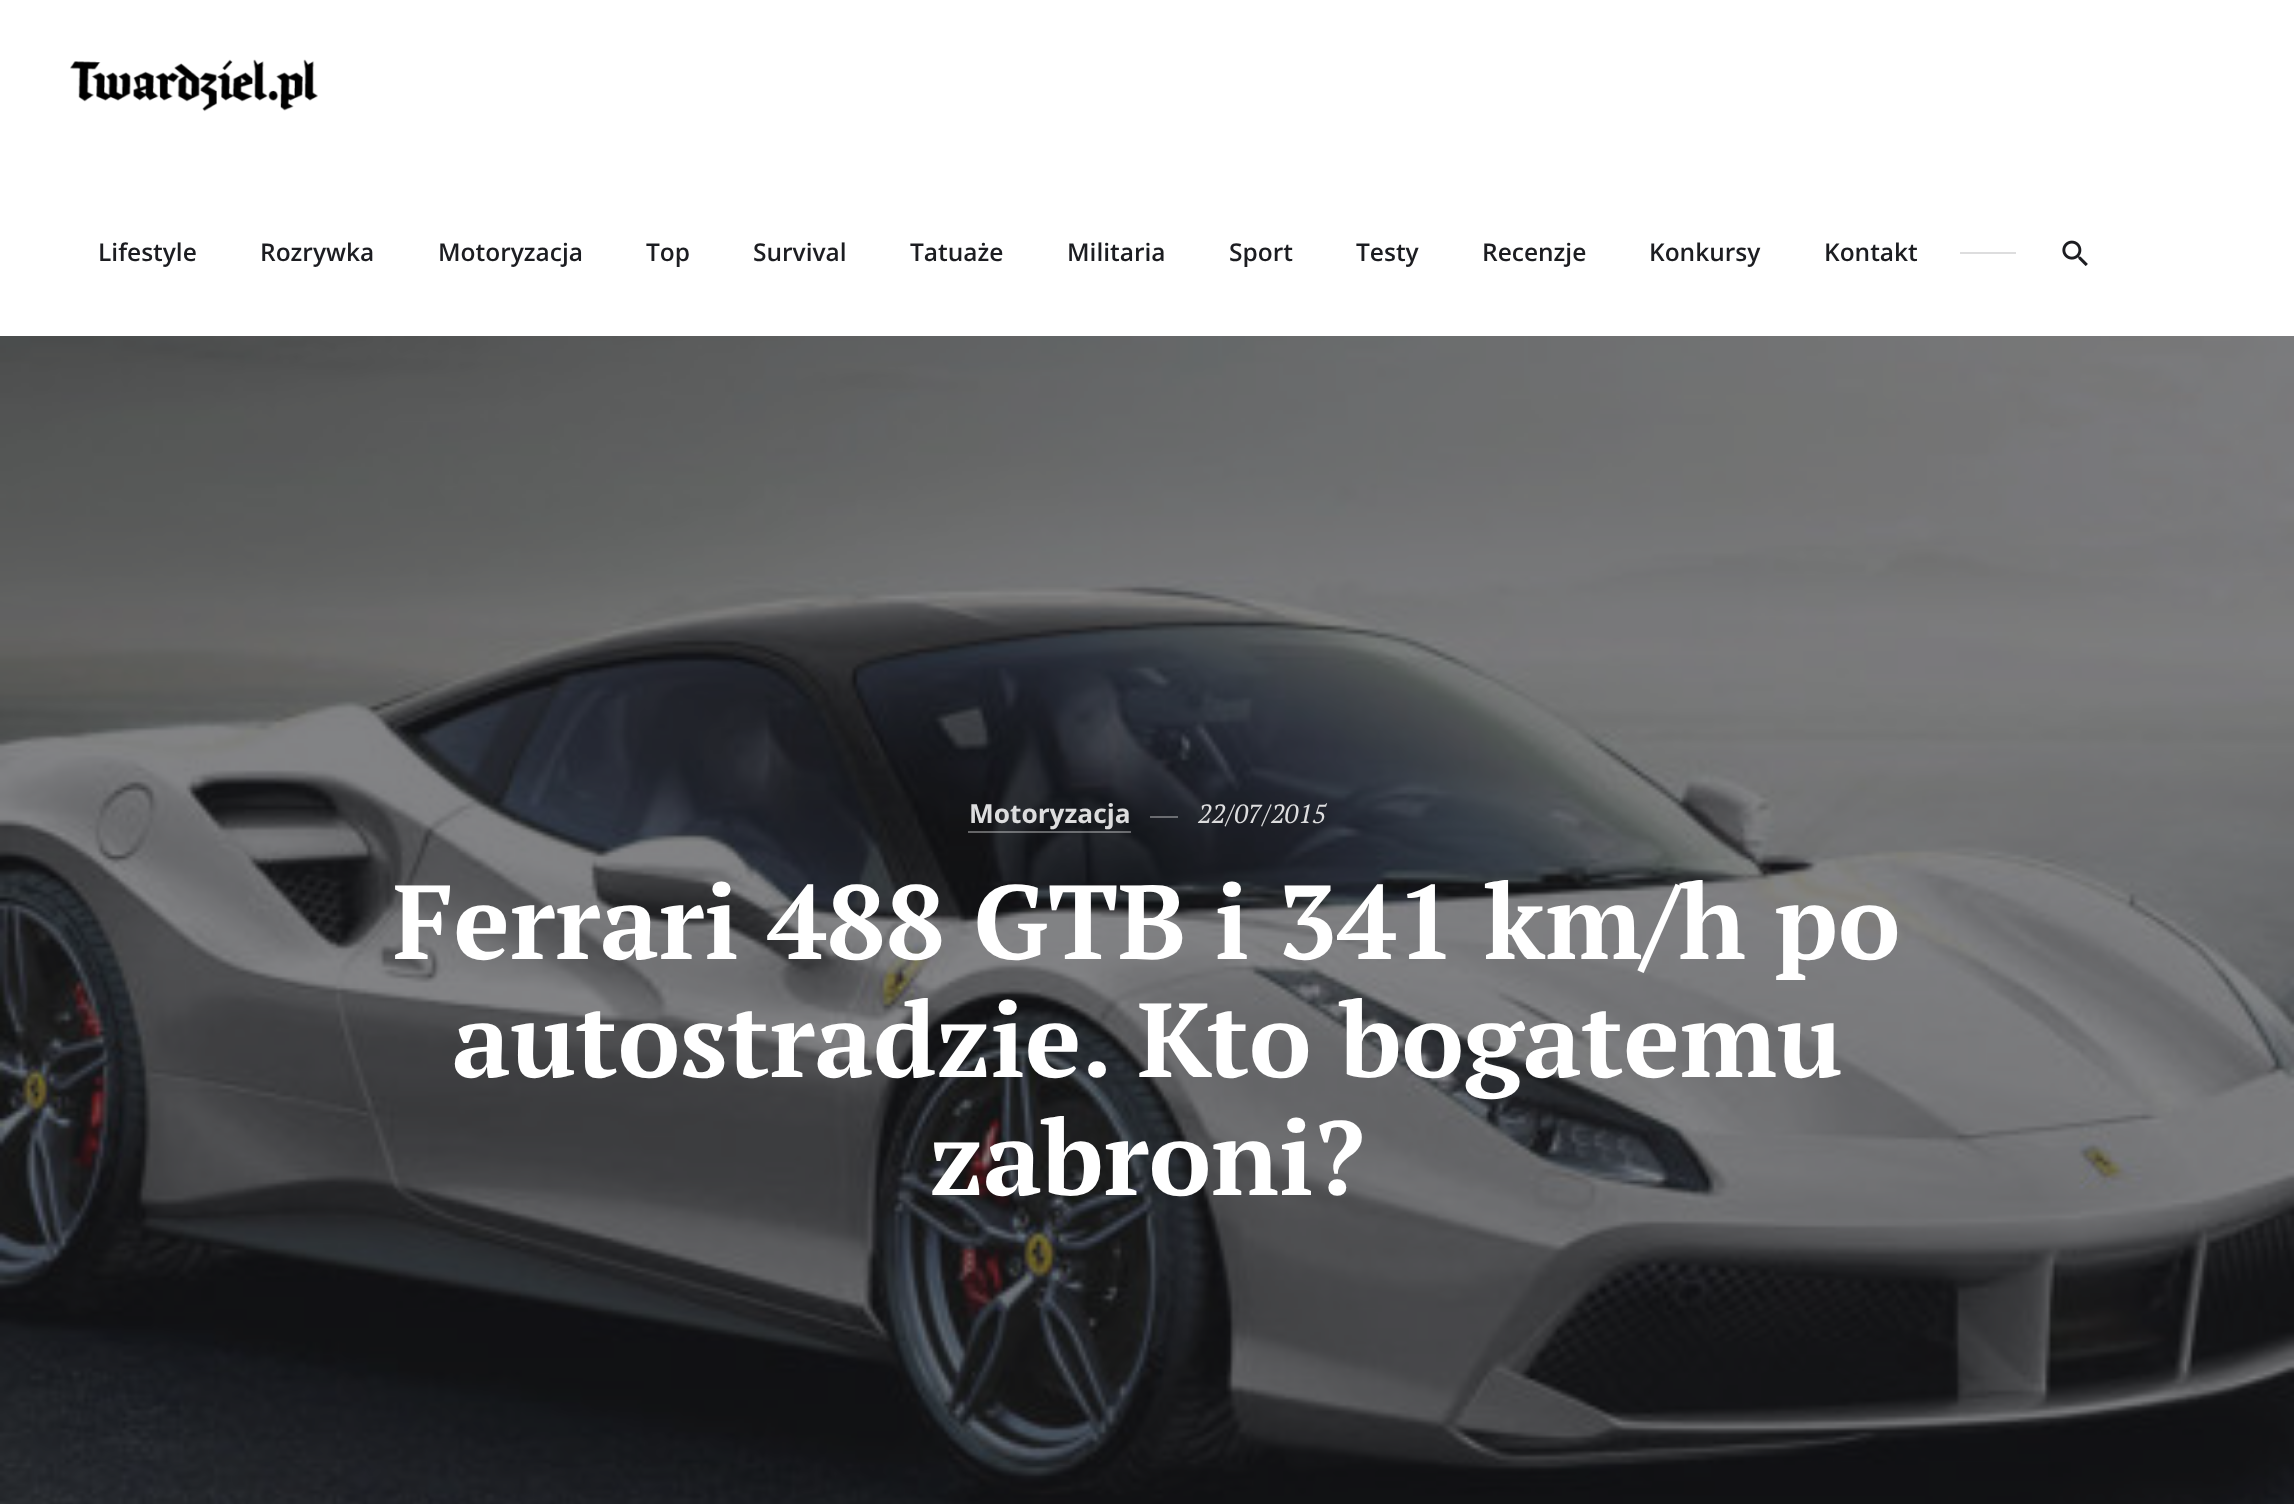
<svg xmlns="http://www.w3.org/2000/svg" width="2294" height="1504">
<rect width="100%" height="100%" fill="#fff"/>
<image x="70" y="59" width="248" height="53" href="media/1.png"/>
<text x="98" y="261" style="font-family:Open Sans;font-size:24.5px;font-weight:600;fill:#1c1d21">Lifestyle</text>
<text x="260" y="261" style="font-family:Open Sans;font-size:24.5px;font-weight:600;fill:#1c1d21">Rozrywka</text>
<text x="438" y="261" style="font-family:Open Sans;font-size:24.5px;font-weight:600;fill:#1c1d21">Motoryzacja</text>
<text x="646" y="261" style="font-family:Open Sans;font-size:24.5px;font-weight:600;fill:#1c1d21">Top</text>
<text x="753" y="261" style="font-family:Open Sans;font-size:24.5px;font-weight:600;fill:#1c1d21">Survival</text>
<text x="910" y="261" style="font-family:Open Sans;font-size:24.5px;font-weight:600;fill:#1c1d21">Tatuaże</text>
<text x="1067" y="261" style="font-family:Open Sans;font-size:24.5px;font-weight:600;fill:#1c1d21">Militaria</text>
<text x="1229" y="261" style="font-family:Open Sans;font-size:24.5px;font-weight:600;fill:#1c1d21">Sport</text>
<text x="1356" y="261" style="font-family:Open Sans;font-size:24.5px;font-weight:600;fill:#1c1d21">Testy</text>
<text x="1482" y="261" style="font-family:Open Sans;font-size:24.5px;font-weight:600;fill:#1c1d21">Recenzje</text>
<text x="1649" y="261" style="font-family:Open Sans;font-size:24.5px;font-weight:600;fill:#1c1d21">Konkursy</text>
<text x="1824" y="261" style="font-family:Open Sans;font-size:24.5px;font-weight:600;fill:#1c1d21">Kontakt</text>
<rect x="1960" y="252" width="56" height="2" fill="#ddddde"/>
<image x="2062" y="240" width="26" height="26" href="media/2.png"/>
<image x="0" y="336" width="2294" height="1168" href="media/3.png"/>
<rect x="968" y="831" width="163" height="2" fill="#ffffff59"/>
<text x="969" y="823" style="font-family:Open Sans;font-size:26.25px;font-weight:bold;fill:#ddddde">Motoryzacja</text>
<rect x="1150" y="816" width="28" height="2" fill="#ffffff59"/>
<text x="1198" y="823" style="font-family:PT Serif;font-size:26.25px;font-style:italic;fill:#ddddde">22/07/2015</text>
<text x="393" y="959" style="font-family:PT Serif;font-size:105px;font-weight:bold;fill:#fff">Ferrari 488 GTB i 341 km/h po</text>
<text x="452" y="1077" style="font-family:PT Serif;font-size:105px;font-weight:bold;fill:#fff">autostradzie. Kto bogatemu</text>
<text x="929" y="1195" style="font-family:PT Serif;font-size:105px;font-weight:bold;fill:#fff">zabroni?</text>
</svg>
